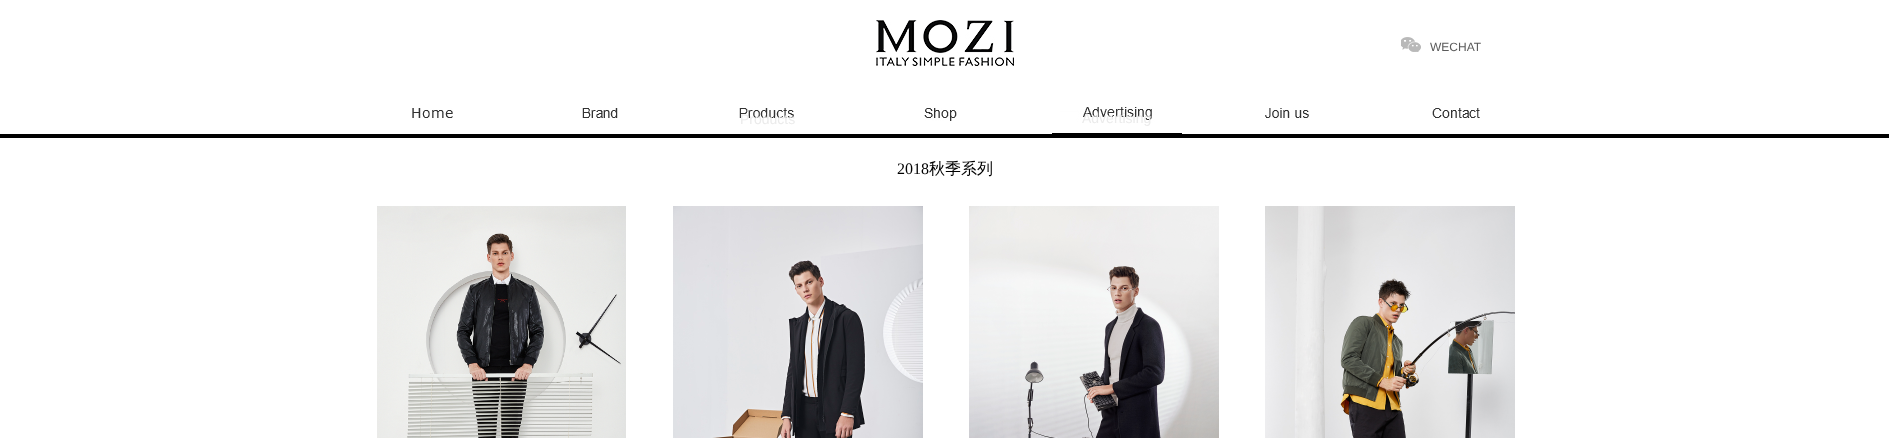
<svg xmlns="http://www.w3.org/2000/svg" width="1889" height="438">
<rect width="100%" height="100%" fill="#fff"/>
<image x="876" y="20" width="138" height="46" href="media/1.png"/>
<image x="1401" y="37" width="20" height="15" href="media/2.png"/>
<text x="1430" y="51" style="font-family:Liberation Sans;font-size:12px;fill:#5a5a5a">WECHAT</text>
<image x="412" y="108" width="41" height="10" href="media/3.png"/>
<image x="582" y="108" width="36" height="10" href="media/4.png"/>
<image x="739" y="108" width="55" height="10" href="media/5.png"/>
<text x="740" y="124" style="font-family:Liberation Sans;font-size:14px;fill:#ebebeb">Products</text>
<image x="924" y="108" width="33" height="13" href="media/6.png"/>
<image x="1052" y="107" width="130" height="27" href="media/7.png"/>
<text x="1082" y="123" style="font-family:Liberation Sans;font-size:14px;fill:#ebebeb">Advertising</text>
<image x="1265" y="108" width="44" height="10" href="media/8.png"/>
<image x="1432" y="108" width="48" height="10" href="media/9.png"/>
<rect y="134" width="1889" height="4" fill="#000"/>
<text x="897" y="174" style="font-family:Liberation Serif;font-size:16px;fill:#000">2018</text>
<text x="929" y="174" style="font-family:WenQuanYi Zen Hei;font-size:16px;font-weight:500;fill:#000">秋季系列</text>
<image x="377" y="206" width="249" height="232" href="media/10.png"/>
<image x="673" y="206" width="250" height="232" href="media/11.png"/>
<image x="969" y="206" width="250" height="232" href="media/12.png"/>
<image x="1265" y="206" width="250" height="232" href="media/13.png"/>
</svg>
